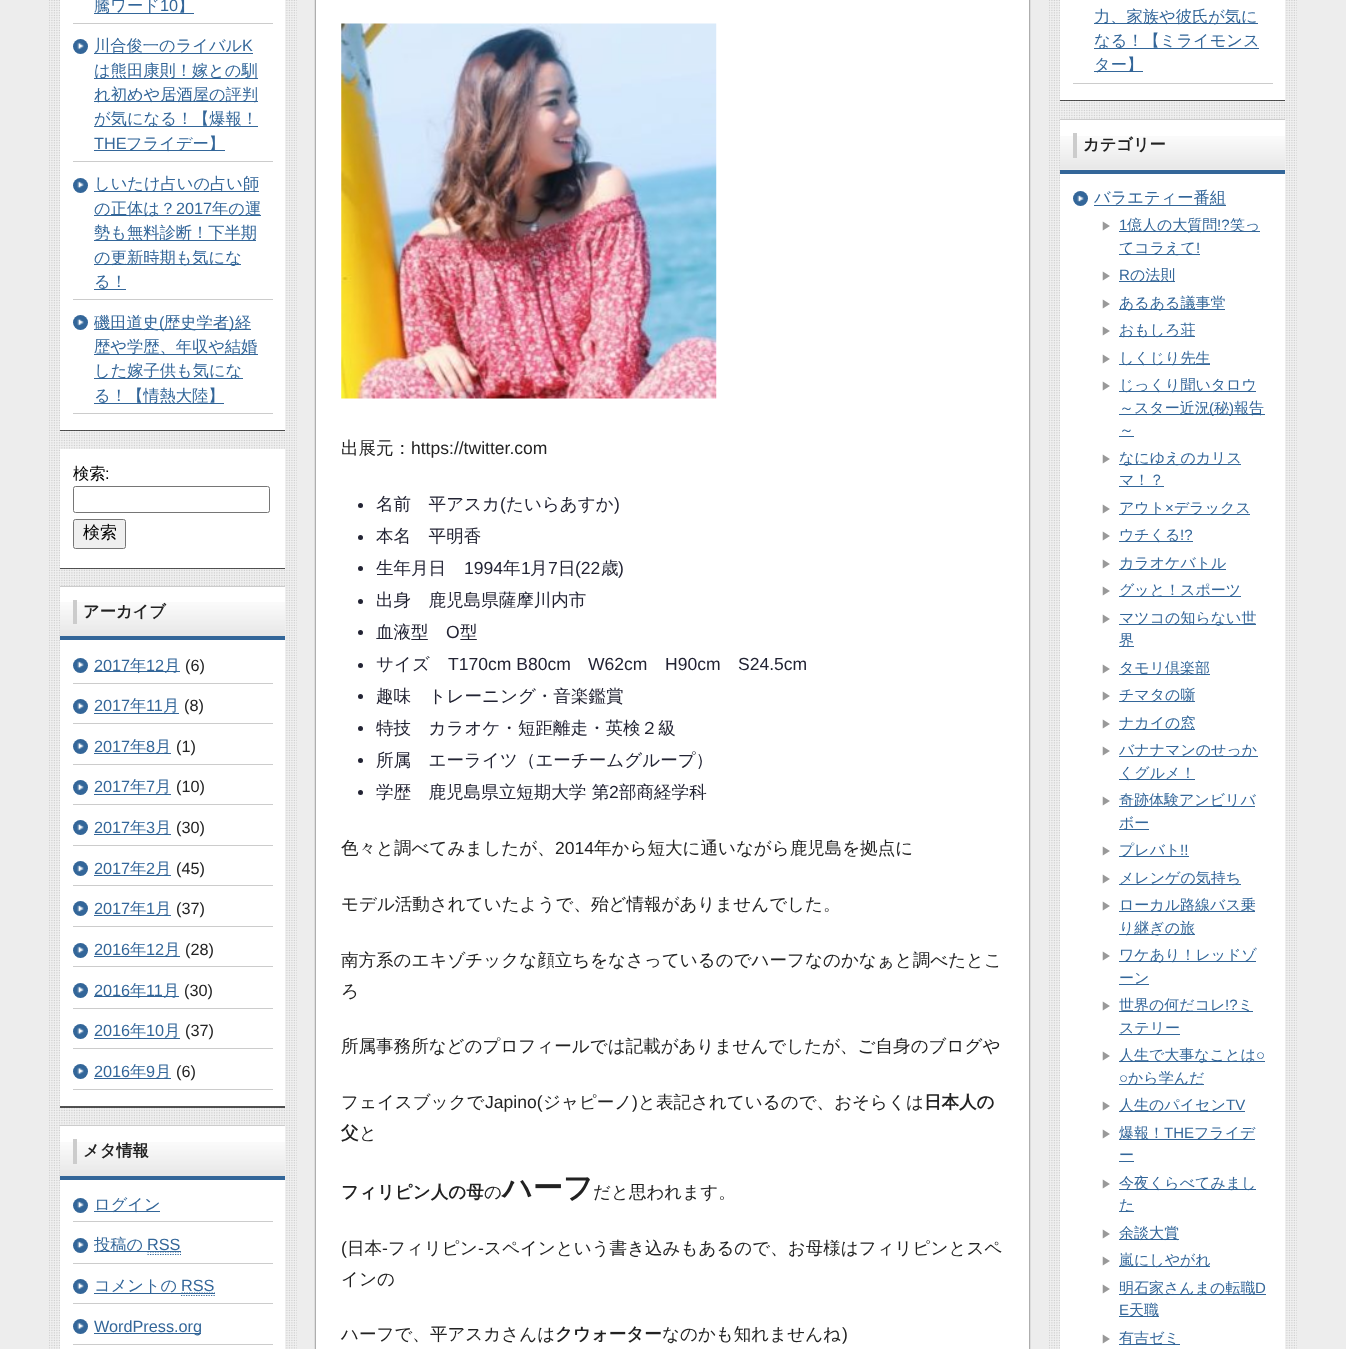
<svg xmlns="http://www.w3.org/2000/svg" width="1346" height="1349">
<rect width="100%" height="100%" fill="#ededed"/>
<image x="49" y="0" width="248" height="1349" href="media/1.png"/>
<rect x="60" y="-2" width="225" height="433" fill="#000000a8" filter="blur(0.5px)"/>
<rect x="60" width="225" height="430" fill="#fff"/>
<rect x="73" y="23" width="200" height="1" fill="#ccc"/>
<rect x="94" y="13" width="100" height="1" fill="#369"/>
<text x="94" y="11" style="font-family:WenQuanYi Zen Hei;font-size:16.25px;font-weight:500;fill:#369">騰ワード</text>
<text x="160" y="11" style="font-family:Liberation Sans;font-size:16.25px;fill:#369">10</text>
<text x="178" y="11" style="font-family:WenQuanYi Zen Hei;font-size:16.25px;font-weight:500;fill:#369">】</text>
<rect x="73" y="161" width="200" height="1" fill="#ccc"/>
<circle cx="80.5" cy="46.5" r="7.5" fill="#369"/>
<image x="77" y="42" width="7" height="8" href="media/2.png"/>
<rect x="94" y="53" width="159" height="1" fill="#369"/>
<text x="94" y="51" style="font-family:WenQuanYi Zen Hei;font-size:16.25px;font-weight:500;fill:#369">川合俊一のライバル</text>
<text x="242" y="51" style="font-family:Liberation Sans;font-size:16.25px;fill:#369">K</text>
<rect x="94" y="78" width="164" height="1" fill="#369"/>
<text x="94" y="76" style="font-family:WenQuanYi Zen Hei;font-size:16.25px;font-weight:500;fill:#369">は熊田康則！嫁との馴</text>
<rect x="94" y="101" width="164" height="1" fill="#369"/>
<text x="94" y="100" style="font-family:WenQuanYi Zen Hei;font-size:16.25px;font-weight:500;fill:#369">れ初めや居酒屋の評判</text>
<rect x="94" y="126" width="164" height="1" fill="#369"/>
<text x="94" y="124" style="font-family:WenQuanYi Zen Hei;font-size:16.25px;font-weight:500;fill:#369">が気になる！【爆報！</text>
<text x="94" y="149" style="font-family:Liberation Sans;font-size:16.25px;fill:#369">THE</text>
<rect x="94" y="150" width="131" height="1" fill="#369"/>
<text x="126" y="149" style="font-family:WenQuanYi Zen Hei;font-size:16.25px;font-weight:500;fill:#369">フライデー】</text>
<rect x="73" y="299" width="200" height="1" fill="#ccc"/>
<circle cx="80.5" cy="185.5" r="7.5" fill="#369"/>
<image x="77" y="181" width="7" height="8" href="media/3.png"/>
<rect x="94" y="191" width="165" height="1" fill="#369"/>
<text x="94" y="189" style="font-family:WenQuanYi Zen Hei;font-size:16.25px;font-weight:500;fill:#369">しいたけ占いの占い師</text>
<rect x="94" y="215" width="167" height="1" fill="#369"/>
<text x="94" y="214" style="font-family:WenQuanYi Zen Hei;font-size:16.25px;font-weight:500;fill:#369">の正体は？</text>
<text x="176" y="214" style="font-family:Liberation Sans;font-size:16.25px;fill:#369">2017</text>
<text x="212" y="214" style="font-family:WenQuanYi Zen Hei;font-size:16.25px;font-weight:500;fill:#369">年の運</text>
<rect x="94" y="240" width="162" height="1" fill="#369"/>
<text x="94" y="238" style="font-family:WenQuanYi Zen Hei;font-size:16.25px;font-weight:500;fill:#369">勢も無料診断！下半期</text>
<rect x="94" y="264" width="147" height="1" fill="#369"/>
<text x="94" y="263" style="font-family:WenQuanYi Zen Hei;font-size:16.25px;font-weight:500;fill:#369">の更新時期も気にな</text>
<text x="94" y="287" style="font-family:WenQuanYi Zen Hei;font-size:16.25px;font-weight:500;fill:#369">る！</text>
<rect x="94" y="289" width="32" height="1" fill="#369"/>
<rect x="73" y="413" width="200" height="1" fill="#ccc"/>
<circle cx="80.5" cy="322.5" r="7.5" fill="#369"/>
<image x="77" y="318" width="7" height="8" href="media/4.png"/>
<rect x="94" y="329" width="157" height="1" fill="#369"/>
<text x="94" y="328" style="font-family:WenQuanYi Zen Hei;font-size:16.25px;font-weight:500;fill:#369">磯田道史</text>
<text x="159" y="328" style="font-family:Liberation Sans;font-size:16.25px;fill:#369">(</text>
<text x="164" y="328" style="font-family:WenQuanYi Zen Hei;font-size:16.25px;font-weight:500;fill:#369">歴史学者</text>
<text x="229" y="328" style="font-family:Liberation Sans;font-size:16.25px;fill:#369">)</text>
<text x="235" y="328" style="font-family:WenQuanYi Zen Hei;font-size:16.25px;font-weight:500;fill:#369">経</text>
<rect x="94" y="354" width="164" height="1" fill="#369"/>
<text x="94" y="352" style="font-family:WenQuanYi Zen Hei;font-size:16.25px;font-weight:500;fill:#369">歴や学歴、年収や結婚</text>
<rect x="94" y="378" width="149" height="1" fill="#369"/>
<text x="94" y="376" style="font-family:WenQuanYi Zen Hei;font-size:16.25px;font-weight:500;fill:#369">した嫁子供も気にな</text>
<rect x="94" y="403" width="130" height="1" fill="#369"/>
<text x="94" y="401" style="font-family:WenQuanYi Zen Hei;font-size:16.25px;font-weight:500;fill:#369">る！【情熱大陸】</text>
<rect x="60" y="450" width="225" height="119" fill="#000000a8" filter="blur(0.5px)"/>
<rect x="60" y="449" width="225" height="119" fill="#fff"/>
<text x="73" y="479" style="font-family:WenQuanYi Zen Hei;font-size:16.25px;font-weight:500;fill:#000">検索</text>
<text x="105" y="479" style="font-family:Liberation Sans;font-size:16.25px;fill:#000">:</text>
<rect x="73.5" y="486.5" width="196" height="26" rx="2" fill="none" stroke="#767676"/>
<rect x="73.5" y="519.5" width="52" height="29" rx="2" fill="#efefef" stroke="#767676"/>
<text x="83" y="538" style="font-family:WenQuanYi Zen Hei;font-size:17px;font-weight:500;fill:#000">検索</text>
<rect x="60" y="588" width="225" height="520" fill="#000000a8" filter="blur(0.5px)"/>
<rect x="60" y="587" width="225" height="519" fill="#fff"/>
<image x="60" y="602" width="225" height="34" href="media/5.png"/>
<rect x="60" y="586" width="225" height="1" fill="#ccc"/>
<rect x="60" y="636" width="225" height="4" fill="#369"/>
<rect x="73" y="600" width="4" height="24" fill="#ccc"/>
<text x="83" y="617" style="font-family:WenQuanYi Zen Hei;font-size:16.25px;font-weight:bold;fill:#222">アーカイブ</text>
<rect x="73" y="683" width="200" height="1" fill="#ccc"/>
<circle cx="80.5" cy="665.5" r="7.5" fill="#369"/>
<image x="77" y="661" width="7" height="8" href="media/3.png"/>
<rect x="94" y="671" width="86" height="1" fill="#369"/>
<text x="94" y="671" style="font-family:Liberation Sans;font-size:16.25px;fill:#369">2017</text>
<text x="130" y="671" style="font-family:WenQuanYi Zen Hei;font-size:16.25px;font-weight:500;fill:#369">年</text>
<text x="146" y="671" style="font-family:Liberation Sans;font-size:16.25px;fill:#369">12</text>
<text x="164" y="671" style="font-family:WenQuanYi Zen Hei;font-size:16.25px;font-weight:500;fill:#369">月</text>
<text x="185" y="671" style="font-family:Liberation Sans;font-size:16.25px;fill:#222">(6)</text>
<rect x="73" y="723" width="200" height="1" fill="#ccc"/>
<circle cx="80.5" cy="706.5" r="7.5" fill="#369"/>
<image x="77" y="702" width="7" height="8" href="media/2.png"/>
<text x="94" y="711" style="font-family:Liberation Sans;font-size:16.25px;fill:#369">2017</text>
<text x="130" y="711" style="font-family:WenQuanYi Zen Hei;font-size:16.25px;font-weight:500;fill:#369">年</text>
<text x="146" y="711" style="font-family:Liberation Sans;font-size:16.25px;fill:#369">11</text>
<rect x="94" y="713" width="85" height="1" fill="#369"/>
<text x="163" y="711" style="font-family:WenQuanYi Zen Hei;font-size:16.25px;font-weight:500;fill:#369">月</text>
<text x="184" y="711" style="font-family:Liberation Sans;font-size:16.25px;fill:#222">(8)</text>
<rect x="73" y="764" width="200" height="1" fill="#ccc"/>
<circle cx="80.5" cy="746.5" r="7.5" fill="#369"/>
<image x="77" y="742" width="7" height="8" href="media/2.png"/>
<text x="94" y="752" style="font-family:Liberation Sans;font-size:16.25px;fill:#369">2017</text>
<rect x="94" y="753" width="77" height="1" fill="#369"/>
<text x="130" y="752" style="font-family:WenQuanYi Zen Hei;font-size:16.25px;font-weight:500;fill:#369">年</text>
<text x="146" y="752" style="font-family:Liberation Sans;font-size:16.25px;fill:#369">8</text>
<text x="155" y="752" style="font-family:WenQuanYi Zen Hei;font-size:16.25px;font-weight:500;fill:#369">月</text>
<text x="176" y="752" style="font-family:Liberation Sans;font-size:16.25px;fill:#222">(1)</text>
<rect x="73" y="804" width="200" height="1" fill="#ccc"/>
<circle cx="80.5" cy="787.5" r="7.5" fill="#369"/>
<image x="77" y="783" width="7" height="8" href="media/4.png"/>
<text x="94" y="792" style="font-family:Liberation Sans;font-size:16.25px;fill:#369">2017</text>
<text x="130" y="792" style="font-family:WenQuanYi Zen Hei;font-size:16.25px;font-weight:500;fill:#369">年</text>
<text x="146" y="792" style="font-family:Liberation Sans;font-size:16.25px;fill:#369">7</text>
<rect x="94" y="794" width="77" height="1" fill="#369"/>
<text x="155" y="792" style="font-family:WenQuanYi Zen Hei;font-size:16.25px;font-weight:500;fill:#369">月</text>
<text x="176" y="792" style="font-family:Liberation Sans;font-size:16.25px;fill:#222">(10)</text>
<rect x="73" y="845" width="200" height="1" fill="#ccc"/>
<circle cx="80.5" cy="827.5" r="7.5" fill="#369"/>
<image x="77" y="823" width="7" height="8" href="media/4.png"/>
<text x="94" y="833" style="font-family:Liberation Sans;font-size:16.25px;fill:#369">2017</text>
<rect x="94" y="834" width="77" height="1" fill="#369"/>
<text x="130" y="833" style="font-family:WenQuanYi Zen Hei;font-size:16.25px;font-weight:500;fill:#369">年</text>
<text x="146" y="833" style="font-family:Liberation Sans;font-size:16.25px;fill:#369">3</text>
<text x="155" y="833" style="font-family:WenQuanYi Zen Hei;font-size:16.25px;font-weight:500;fill:#369">月</text>
<text x="176" y="833" style="font-family:Liberation Sans;font-size:16.25px;fill:#222">(30)</text>
<rect x="73" y="885" width="200" height="1" fill="#ccc"/>
<circle cx="80.5" cy="868.5" r="7.5" fill="#369"/>
<image x="77" y="865" width="7" height="7" href="media/6.png"/>
<text x="94" y="874" style="font-family:Liberation Sans;font-size:16.25px;fill:#369">2017</text>
<rect x="94" y="875" width="77" height="1" fill="#369"/>
<text x="130" y="874" style="font-family:WenQuanYi Zen Hei;font-size:16.25px;font-weight:500;fill:#369">年</text>
<text x="146" y="874" style="font-family:Liberation Sans;font-size:16.25px;fill:#369">2</text>
<text x="155" y="874" style="font-family:WenQuanYi Zen Hei;font-size:16.25px;font-weight:500;fill:#369">月</text>
<text x="176" y="874" style="font-family:Liberation Sans;font-size:16.25px;fill:#222">(45)</text>
<rect x="73" y="926" width="200" height="1" fill="#ccc"/>
<circle cx="80.5" cy="908.5" r="7.5" fill="#369"/>
<image x="77" y="905" width="7" height="7" href="media/6.png"/>
<text x="94" y="914" style="font-family:Liberation Sans;font-size:16.25px;fill:#369">2017</text>
<rect x="94" y="915" width="77" height="1" fill="#369"/>
<text x="130" y="914" style="font-family:WenQuanYi Zen Hei;font-size:16.25px;font-weight:500;fill:#369">年</text>
<text x="146" y="914" style="font-family:Liberation Sans;font-size:16.25px;fill:#369">1</text>
<text x="155" y="914" style="font-family:WenQuanYi Zen Hei;font-size:16.25px;font-weight:500;fill:#369">月</text>
<text x="176" y="914" style="font-family:Liberation Sans;font-size:16.25px;fill:#222">(37)</text>
<rect x="73" y="966" width="200" height="1" fill="#ccc"/>
<circle cx="80.5" cy="950.5" r="7.5" fill="#369"/>
<image x="77" y="946" width="7" height="8" href="media/3.png"/>
<text x="94" y="955" style="font-family:Liberation Sans;font-size:16.25px;fill:#369">2016</text>
<rect x="94" y="956" width="86" height="1" fill="#369"/>
<text x="130" y="955" style="font-family:WenQuanYi Zen Hei;font-size:16.25px;font-weight:500;fill:#369">年</text>
<text x="146" y="955" style="font-family:Liberation Sans;font-size:16.25px;fill:#369">12</text>
<text x="164" y="955" style="font-family:WenQuanYi Zen Hei;font-size:16.25px;font-weight:500;fill:#369">月</text>
<text x="185" y="955" style="font-family:Liberation Sans;font-size:16.25px;fill:#222">(28)</text>
<rect x="73" y="1008" width="200" height="1" fill="#ccc"/>
<circle cx="80.5" cy="990.5" r="7.5" fill="#369"/>
<image x="77" y="986" width="7" height="8" href="media/3.png"/>
<rect x="94" y="996" width="85" height="1" fill="#369"/>
<text x="94" y="996" style="font-family:Liberation Sans;font-size:16.25px;fill:#369">2016</text>
<text x="130" y="996" style="font-family:WenQuanYi Zen Hei;font-size:16.25px;font-weight:500;fill:#369">年</text>
<text x="146" y="996" style="font-family:Liberation Sans;font-size:16.25px;fill:#369">11</text>
<text x="163" y="996" style="font-family:WenQuanYi Zen Hei;font-size:16.25px;font-weight:500;fill:#369">月</text>
<text x="184" y="996" style="font-family:Liberation Sans;font-size:16.25px;fill:#222">(30)</text>
<rect x="73" y="1048" width="200" height="1" fill="#ccc"/>
<circle cx="80.5" cy="1031.5" r="7.5" fill="#369"/>
<image x="77" y="1027" width="7" height="8" href="media/2.png"/>
<text x="94" y="1036" style="font-family:Liberation Sans;font-size:16.25px;fill:#369">2016</text>
<text x="130" y="1036" style="font-family:WenQuanYi Zen Hei;font-size:16.25px;font-weight:500;fill:#369">年</text>
<text x="146" y="1036" style="font-family:Liberation Sans;font-size:16.25px;fill:#369">10</text>
<rect x="94" y="1038" width="86" height="1" fill="#369"/>
<text x="164" y="1036" style="font-family:WenQuanYi Zen Hei;font-size:16.25px;font-weight:500;fill:#369">月</text>
<text x="185" y="1036" style="font-family:Liberation Sans;font-size:16.25px;fill:#222">(37)</text>
<rect x="73" y="1089" width="200" height="1" fill="#ccc"/>
<circle cx="80.5" cy="1071.5" r="7.5" fill="#369"/>
<image x="77" y="1067" width="7" height="8" href="media/2.png"/>
<text x="94" y="1077" style="font-family:Liberation Sans;font-size:16.25px;fill:#369">2016</text>
<rect x="94" y="1078" width="77" height="1" fill="#369"/>
<text x="130" y="1077" style="font-family:WenQuanYi Zen Hei;font-size:16.25px;font-weight:500;fill:#369">年</text>
<text x="146" y="1077" style="font-family:Liberation Sans;font-size:16.25px;fill:#369">9</text>
<text x="155" y="1077" style="font-family:WenQuanYi Zen Hei;font-size:16.25px;font-weight:500;fill:#369">月</text>
<text x="176" y="1077" style="font-family:Liberation Sans;font-size:16.25px;fill:#222">(6)</text>
<rect x="60" y="1126" width="225" height="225" fill="#000000a8" filter="blur(0.5px)"/>
<rect x="60" y="1126" width="225" height="223" fill="#fff"/>
<image x="60" y="1142" width="225" height="34" href="media/7.png"/>
<rect x="60" y="1125" width="225" height="1" fill="#ccc"/>
<rect x="60" y="1176" width="225" height="4" fill="#369"/>
<rect x="73" y="1139" width="4" height="25" fill="#ccc"/>
<text x="83" y="1156" style="font-family:WenQuanYi Zen Hei;font-size:16.25px;font-weight:bold;fill:#222">メタ情報</text>
<rect x="73" y="1221" width="200" height="1" fill="#ccc"/>
<circle cx="80.5" cy="1205.5" r="7.5" fill="#369"/>
<image x="77" y="1201" width="7" height="8" href="media/3.png"/>
<rect x="94" y="1211" width="66" height="1" fill="#369"/>
<text x="94" y="1210" style="font-family:WenQuanYi Zen Hei;font-size:16.25px;font-weight:500;fill:#369">ログイン</text>
<rect x="73" y="1263" width="200" height="1" fill="#ccc"/>
<circle cx="80.5" cy="1245.5" r="7.5" fill="#369"/>
<image x="77" y="1241" width="7" height="8" href="media/3.png"/>
<rect x="94" y="1251" width="54" height="1" fill="#369"/>
<text x="94" y="1250" style="font-family:WenQuanYi Zen Hei;font-size:16.25px;font-weight:500;fill:#369">投稿の</text>
<text x="147" y="1250" style="font-family:Liberation Sans;font-size:16.25px;fill:#369">RSS</text>
<path d="M147.5 1254.5h33.5m-33.5-2.5h33.5" fill="none" stroke="#369" stroke-width="1.2" stroke-dasharray="1.25 1.25"/>
<rect x="148" y="1251" width="33" height="1" fill="#369"/>
<rect x="73" y="1303" width="200" height="1" fill="#ccc"/>
<circle cx="80.5" cy="1286.5" r="7.5" fill="#369"/>
<image x="77" y="1282" width="7" height="8" href="media/2.png"/>
<text x="94" y="1291" style="font-family:WenQuanYi Zen Hei;font-size:16.25px;font-weight:500;fill:#369">コメントの</text>
<rect x="94" y="1293" width="87" height="1" fill="#369"/>
<text x="181" y="1291" style="font-family:Liberation Sans;font-size:16.25px;fill:#369">RSS</text>
<path d="M181 1295.5h34m-33.5-2.5h33.5" fill="none" stroke="#369" stroke-width="1.2" stroke-dasharray="1.25 1.25"/>
<rect x="181" y="1293" width="34" height="1" fill="#369"/>
<rect x="73" y="1344" width="200" height="1" fill="#ccc"/>
<circle cx="80.5" cy="1326.5" r="7.5" fill="#369"/>
<image x="77" y="1322" width="7" height="8" href="media/2.png"/>
<rect x="94" y="1333" width="107" height="1" fill="#369"/>
<text x="94" y="1332" style="font-family:Liberation Sans;font-size:16.25px;fill:#369">WordPress.org</text>
<rect x="316" y="-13" width="713" height="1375" rx="10" fill="#000000cc" filter="blur(1px)"/>
<rect x="316" width="713" height="1349" fill="#fff"/>
<image x="341" y="23" width="376" height="376" href="media/8.png"/>
<text x="341" y="454" style="font-family:WenQuanYi Zen Hei;font-size:17.55px;font-weight:500;fill:#222">出展元：</text>
<text x="411" y="454" style="font-family:Liberation Sans;font-size:17.55px;fill:#222">https://twitter.com</text>
<circle cx="360.5" cy="505.5" r="2.5" fill="#222333"/>
<text x="376" y="510" style="font-family:WenQuanYi Zen Hei;font-size:17.55px;font-weight:500;fill:#222333">名前　平アスカ</text>
<text x="500" y="510" style="font-family:Liberation Sans;font-size:17.55px;fill:#222333">(</text>
<text x="506" y="510" style="font-family:WenQuanYi Zen Hei;font-size:17.55px;font-weight:500;fill:#222333">たいらあすか</text>
<text x="614" y="510" style="font-family:Liberation Sans;font-size:17.55px;fill:#222333">)</text>
<circle cx="360.5" cy="537.5" r="2.5" fill="#222333"/>
<text x="376" y="542" style="font-family:WenQuanYi Zen Hei;font-size:17.55px;font-weight:500;fill:#222333">本名　平明香</text>
<circle cx="360.5" cy="568.5" r="2.5" fill="#222333"/>
<text x="376" y="574" style="font-family:WenQuanYi Zen Hei;font-size:17.55px;font-weight:500;fill:#222333">生年月日</text>
<text x="464" y="574" style="font-family:Liberation Sans;font-size:17.55px;fill:#222333">1994</text>
<text x="503" y="574" style="font-family:WenQuanYi Zen Hei;font-size:17.55px;font-weight:500;fill:#222333">年</text>
<text x="521" y="574" style="font-family:Liberation Sans;font-size:17.55px;fill:#222333">1</text>
<text x="530" y="574" style="font-family:WenQuanYi Zen Hei;font-size:17.55px;font-weight:500;fill:#222333">月</text>
<text x="548" y="574" style="font-family:Liberation Sans;font-size:17.55px;fill:#222333">7</text>
<text x="558" y="574" style="font-family:WenQuanYi Zen Hei;font-size:17.55px;font-weight:500;fill:#222333">日</text>
<text x="575" y="574" style="font-family:Liberation Sans;font-size:17.55px;fill:#222333">(22</text>
<text x="601" y="574" style="font-family:WenQuanYi Zen Hei;font-size:17.55px;font-weight:500;fill:#222333">歳</text>
<text x="618" y="574" style="font-family:Liberation Sans;font-size:17.55px;fill:#222333">)</text>
<circle cx="360.5" cy="601.5" r="2.5" fill="#222333"/>
<text x="376" y="606" style="font-family:WenQuanYi Zen Hei;font-size:17.55px;font-weight:500;fill:#222333">出身　鹿児島県薩摩川内市</text>
<circle cx="360.5" cy="632.5" r="2.5" fill="#222333"/>
<text x="376" y="638" style="font-family:WenQuanYi Zen Hei;font-size:17.55px;font-weight:500;fill:#222333">血液型</text>
<text x="446" y="638" style="font-family:Liberation Sans;font-size:17.55px;fill:#222333">O</text>
<text x="460" y="638" style="font-family:WenQuanYi Zen Hei;font-size:17.55px;font-weight:500;fill:#222333">型</text>
<circle cx="360.5" cy="665.5" r="2.5" fill="#222333"/>
<text x="376" y="670" style="font-family:WenQuanYi Zen Hei;font-size:17.55px;font-weight:500;fill:#222333">サイズ</text>
<text x="448" y="670" style="font-family:Liberation Sans;font-size:17.55px;fill:#222333">T170cm B80cm</text>
<text x="588" y="670" style="font-family:Liberation Sans;font-size:17.55px;fill:#222333">W62cm</text>
<text x="665" y="670" style="font-family:Liberation Sans;font-size:17.55px;fill:#222333">H90cm</text>
<text x="738" y="670" style="font-family:Liberation Sans;font-size:17.55px;fill:#222333">S24.5cm</text>
<circle cx="360.5" cy="696.5" r="2.5" fill="#222333"/>
<text x="376" y="702" style="font-family:WenQuanYi Zen Hei;font-size:17.55px;font-weight:500;fill:#222333">趣味　トレーニング・音楽鑑賞</text>
<circle cx="360.5" cy="728.5" r="2.5" fill="#222333"/>
<text x="376" y="734" style="font-family:WenQuanYi Zen Hei;font-size:17.55px;font-weight:500;fill:#222333">特技　カラオケ・短距離走・英検２級</text>
<circle cx="360.5" cy="760.5" r="2.5" fill="#222333"/>
<text x="376" y="766" style="font-family:WenQuanYi Zen Hei;font-size:17.55px;font-weight:500;fill:#222333">所属　エーライツ（エーチームグループ）</text>
<circle cx="360.5" cy="792.5" r="2.5" fill="#222333"/>
<text x="376" y="798" style="font-family:WenQuanYi Zen Hei;font-size:17.55px;font-weight:500;fill:#222333">学歴　鹿児島県立短期大学 第</text>
<text x="609" y="798" style="font-family:Liberation Sans;font-size:17.55px;fill:#222333">2</text>
<text x="619" y="798" style="font-family:WenQuanYi Zen Hei;font-size:17.55px;font-weight:500;fill:#222333">部商経学科</text>
<text x="341" y="854" style="font-family:WenQuanYi Zen Hei;font-size:17.55px;font-weight:500;fill:#222">色々と調べてみましたが、</text>
<text x="555" y="854" style="font-family:Liberation Sans;font-size:17.55px;fill:#222">2014</text>
<text x="594" y="854" style="font-family:WenQuanYi Zen Hei;font-size:17.55px;font-weight:500;fill:#222">年から短大に通いながら鹿児島を拠点に</text>
<text x="341" y="910" style="font-family:WenQuanYi Zen Hei;font-size:17.55px;font-weight:500;fill:#222">モデル活動されていたようで、殆ど情報がありませんでした。</text>
<text x="341" y="966" style="font-family:WenQuanYi Zen Hei;font-size:17.55px;font-weight:500;fill:#222">南方系のエキゾチックな顔立ちをなさっているのでハーフなのかなぁと調べたとこ</text>
<text x="341" y="997" style="font-family:WenQuanYi Zen Hei;font-size:17.55px;font-weight:500;fill:#222">ろ</text>
<text x="341" y="1052" style="font-family:WenQuanYi Zen Hei;font-size:17.55px;font-weight:500;fill:#222">所属事務所などのプロフィールでは記載がありませんでしたが、ご自身のブログや</text>
<text x="341" y="1108" style="font-family:WenQuanYi Zen Hei;font-size:17.55px;font-weight:500;fill:#222">フェイスブックで</text>
<text x="485" y="1108" style="font-family:Liberation Sans;font-size:17.55px;fill:#222">Japino(</text>
<text x="543" y="1108" style="font-family:WenQuanYi Zen Hei;font-size:17.55px;font-weight:500;fill:#222">ジャピーノ</text>
<text x="632" y="1108" style="font-family:Liberation Sans;font-size:17.55px;fill:#222">)</text>
<text x="638" y="1108" style="font-family:WenQuanYi Zen Hei;font-size:17.55px;font-weight:500;fill:#222">と表記されているので、おそらくは</text>
<text x="924" y="1108" style="font-family:WenQuanYi Zen Hei;font-size:17.55px;font-weight:bold;fill:#222">日本人の</text>
<text x="341" y="1139" style="font-family:WenQuanYi Zen Hei;font-size:17.55px;font-weight:bold;fill:#222">父</text>
<text x="359" y="1139" style="font-family:WenQuanYi Zen Hei;font-size:17.55px;font-weight:500;fill:#222">と</text>
<text x="341" y="1198" style="font-family:WenQuanYi Zen Hei;font-size:17.55px;font-weight:bold;fill:#222">フィリピン人の母</text>
<text x="484" y="1198" style="font-family:WenQuanYi Zen Hei;font-size:17.55px;font-weight:500;fill:#222">の</text>
<text x="502" y="1198" style="font-family:WenQuanYi Zen Hei;font-size:30px;font-weight:bold;fill:#222">ハーフ</text>
<text x="593" y="1198" style="font-family:WenQuanYi Zen Hei;font-size:17.55px;font-weight:500;fill:#222">だと思われます。</text>
<text x="341" y="1254" style="font-family:Liberation Sans;font-size:17.55px;fill:#222">(</text>
<text x="347" y="1254" style="font-family:WenQuanYi Zen Hei;font-size:17.55px;font-weight:500;fill:#222">日本</text>
<text x="382" y="1254" style="font-family:Liberation Sans;font-size:17.55px;fill:#222">-</text>
<text x="388" y="1254" style="font-family:WenQuanYi Zen Hei;font-size:17.55px;font-weight:500;fill:#222">フィリピン</text>
<text x="478" y="1254" style="font-family:Liberation Sans;font-size:17.55px;fill:#222">-</text>
<text x="484" y="1254" style="font-family:WenQuanYi Zen Hei;font-size:17.55px;font-weight:500;fill:#222">スペインという書き込みもあるので、お母様はフィリピンとスペ</text>
<text x="341" y="1285" style="font-family:WenQuanYi Zen Hei;font-size:17.55px;font-weight:500;fill:#222">インの</text>
<text x="341" y="1340" style="font-family:WenQuanYi Zen Hei;font-size:17.55px;font-weight:500;fill:#222">ハーフで、平アスカさんは</text>
<text x="555" y="1340" style="font-family:WenQuanYi Zen Hei;font-size:17.55px;font-weight:bold;fill:#222">クウォーター</text>
<text x="662" y="1340" style="font-family:WenQuanYi Zen Hei;font-size:17.55px;font-weight:500;fill:#222">なのかも知れませんね</text>
<text x="842" y="1340" style="font-family:Liberation Sans;font-size:17.55px;fill:#222">)</text>
<image x="1049" y="0" width="248" height="1349" href="media/1.png"/>
<rect x="1060" y="-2" width="225" height="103" fill="#000000a8" filter="blur(0.5px)"/>
<rect x="1060" width="225" height="100" fill="#fff"/>
<rect x="1073" y="83" width="200" height="1" fill="#ccc"/>
<rect x="1094" y="23" width="164" height="1" fill="#369"/>
<text x="1094" y="22" style="font-family:WenQuanYi Zen Hei;font-size:16.25px;font-weight:500;fill:#369">力、家族や彼氏が気に</text>
<rect x="1094" y="48" width="165" height="1" fill="#369"/>
<text x="1094" y="46" style="font-family:WenQuanYi Zen Hei;font-size:16.25px;font-weight:500;fill:#369">なる！【ミライモンス</text>
<rect x="1094" y="71" width="49" height="1" fill="#369"/>
<text x="1094" y="70" style="font-family:WenQuanYi Zen Hei;font-size:16.25px;font-weight:500;fill:#369">ター】</text>
<rect x="1060" y="120" width="225" height="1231" fill="#000000a8" filter="blur(0.5px)"/>
<rect x="1060" y="120" width="225" height="1229" fill="#fff"/>
<image x="1060" y="136" width="225" height="34" href="media/9.png"/>
<rect x="1060" y="119" width="225" height="1" fill="#ccc"/>
<rect x="1060" y="170" width="225" height="4" fill="#369"/>
<rect x="1073" y="133" width="4" height="25" fill="#ccc"/>
<text x="1083" y="150" style="font-family:WenQuanYi Zen Hei;font-size:16.25px;font-weight:bold;fill:#222">カテゴリー</text>
<circle cx="1080.5" cy="198.5" r="7.5" fill="#369"/>
<image x="1077" y="195" width="7" height="7" href="media/6.png"/>
<text x="1094" y="203" style="font-family:WenQuanYi Zen Hei;font-size:16.25px;font-weight:500;fill:#369">バラエティー番組</text>
<rect x="1094" y="205" width="132" height="1" fill="#369"/>
<text x="1101" y="230" style="font-family:WenQuanYi Zen Hei;font-size:11px;font-weight:500;fill:#999">▶</text>
<text x="1119" y="230" style="font-family:Liberation Sans;font-size:15px;fill:#369">1</text>
<rect x="1119" y="231" width="141" height="1" fill="#369"/>
<text x="1127" y="230" style="font-family:WenQuanYi Zen Hei;font-size:15px;font-weight:500;fill:#369">億人の大質問</text>
<text x="1217" y="230" style="font-family:Liberation Sans;font-size:15px;fill:#369">!?</text>
<text x="1230" y="230" style="font-family:WenQuanYi Zen Hei;font-size:15px;font-weight:500;fill:#369">笑っ</text>
<rect x="1119" y="254" width="81" height="1" fill="#369"/>
<text x="1119" y="253" style="font-family:WenQuanYi Zen Hei;font-size:15px;font-weight:500;fill:#369">てコラえて</text>
<text x="1196" y="253" style="font-family:Liberation Sans;font-size:15px;fill:#369">!</text>
<text x="1101" y="280" style="font-family:WenQuanYi Zen Hei;font-size:11px;font-weight:500;fill:#999">▶</text>
<text x="1119" y="280" style="font-family:Liberation Sans;font-size:15px;fill:#369">R</text>
<rect x="1119" y="281" width="56" height="1" fill="#369"/>
<text x="1130" y="280" style="font-family:WenQuanYi Zen Hei;font-size:15px;font-weight:500;fill:#369">の法則</text>
<text x="1101" y="308" style="font-family:WenQuanYi Zen Hei;font-size:11px;font-weight:500;fill:#999">▶</text>
<rect x="1119" y="309" width="106" height="1" fill="#369"/>
<text x="1119" y="308" style="font-family:WenQuanYi Zen Hei;font-size:15px;font-weight:500;fill:#369">あるある議事堂</text>
<text x="1101" y="335" style="font-family:WenQuanYi Zen Hei;font-size:11px;font-weight:500;fill:#999">▶</text>
<rect x="1119" y="336" width="76" height="1" fill="#369"/>
<text x="1119" y="335" style="font-family:WenQuanYi Zen Hei;font-size:15px;font-weight:500;fill:#369">おもしろ荘</text>
<text x="1101" y="363" style="font-family:WenQuanYi Zen Hei;font-size:11px;font-weight:500;fill:#999">▶</text>
<rect x="1119" y="364" width="91" height="1" fill="#369"/>
<text x="1119" y="363" style="font-family:WenQuanYi Zen Hei;font-size:15px;font-weight:500;fill:#369">しくじり先生</text>
<text x="1101" y="390" style="font-family:WenQuanYi Zen Hei;font-size:11px;font-weight:500;fill:#999">▶</text>
<rect x="1119" y="391" width="137" height="1" fill="#369"/>
<text x="1119" y="390" style="font-family:WenQuanYi Zen Hei;font-size:15px;font-weight:500;fill:#369">じっくり聞いタロウ</text>
<rect x="1119" y="414" width="146" height="1" fill="#369"/>
<text x="1119" y="413" style="font-family:WenQuanYi Zen Hei;font-size:15px;font-weight:500;fill:#369">～スター近況</text>
<text x="1209" y="413" style="font-family:Liberation Sans;font-size:15px;fill:#369">(</text>
<text x="1214" y="413" style="font-family:WenQuanYi Zen Hei;font-size:15px;font-weight:500;fill:#369">秘</text>
<text x="1229" y="413" style="font-family:Liberation Sans;font-size:15px;fill:#369">)</text>
<text x="1234" y="413" style="font-family:WenQuanYi Zen Hei;font-size:15px;font-weight:500;fill:#369">報告</text>
<text x="1119" y="435" style="font-family:WenQuanYi Zen Hei;font-size:15px;font-weight:500;fill:#369">～</text>
<rect x="1119" y="436" width="15" height="1" fill="#369"/>
<text x="1101" y="463" style="font-family:WenQuanYi Zen Hei;font-size:11px;font-weight:500;fill:#999">▶</text>
<rect x="1119" y="464" width="122" height="1" fill="#369"/>
<text x="1119" y="463" style="font-family:WenQuanYi Zen Hei;font-size:15px;font-weight:500;fill:#369">なにゆえのカリス</text>
<text x="1119" y="485" style="font-family:WenQuanYi Zen Hei;font-size:15px;font-weight:500;fill:#369">マ！？</text>
<rect x="1119" y="486" width="45" height="1" fill="#369"/>
<text x="1101" y="513" style="font-family:WenQuanYi Zen Hei;font-size:11px;font-weight:500;fill:#999">▶</text>
<rect x="1119" y="514" width="131" height="1" fill="#369"/>
<text x="1119" y="513" style="font-family:WenQuanYi Zen Hei;font-size:15px;font-weight:500;fill:#369">アウト</text>
<text x="1165" y="513" style="font-family:Liberation Sans;font-size:15px;fill:#369">×</text>
<text x="1174" y="513" style="font-family:WenQuanYi Zen Hei;font-size:15px;font-weight:500;fill:#369">デラックス</text>
<text x="1101" y="540" style="font-family:WenQuanYi Zen Hei;font-size:11px;font-weight:500;fill:#999">▶</text>
<rect x="1119" y="541" width="74" height="1" fill="#369"/>
<text x="1119" y="540" style="font-family:WenQuanYi Zen Hei;font-size:15px;font-weight:500;fill:#369">ウチくる</text>
<text x="1180" y="540" style="font-family:Liberation Sans;font-size:15px;fill:#369">!?</text>
<text x="1101" y="568" style="font-family:WenQuanYi Zen Hei;font-size:11px;font-weight:500;fill:#999">▶</text>
<rect x="1119" y="569" width="107" height="1" fill="#369"/>
<text x="1119" y="568" style="font-family:WenQuanYi Zen Hei;font-size:15px;font-weight:500;fill:#369">カラオケバトル</text>
<text x="1101" y="595" style="font-family:WenQuanYi Zen Hei;font-size:11px;font-weight:500;fill:#999">▶</text>
<rect x="1119" y="596" width="122" height="1" fill="#369"/>
<text x="1119" y="595" style="font-family:WenQuanYi Zen Hei;font-size:15px;font-weight:500;fill:#369">グッと！スポーツ</text>
<text x="1101" y="623" style="font-family:WenQuanYi Zen Hei;font-size:11px;font-weight:500;fill:#999">▶</text>
<rect x="1119" y="624" width="137" height="1" fill="#369"/>
<text x="1119" y="623" style="font-family:WenQuanYi Zen Hei;font-size:15px;font-weight:500;fill:#369">マツコの知らない世</text>
<rect x="1119" y="646" width="15" height="1" fill="#369"/>
<text x="1119" y="645" style="font-family:WenQuanYi Zen Hei;font-size:15px;font-weight:500;fill:#369">界</text>
<text x="1101" y="673" style="font-family:WenQuanYi Zen Hei;font-size:11px;font-weight:500;fill:#999">▶</text>
<rect x="1119" y="674" width="91" height="1" fill="#369"/>
<text x="1119" y="673" style="font-family:WenQuanYi Zen Hei;font-size:15px;font-weight:500;fill:#369">タモリ倶楽部</text>
<text x="1101" y="700" style="font-family:WenQuanYi Zen Hei;font-size:11px;font-weight:500;fill:#999">▶</text>
<rect x="1119" y="701" width="76" height="1" fill="#369"/>
<text x="1119" y="700" style="font-family:WenQuanYi Zen Hei;font-size:15px;font-weight:500;fill:#369">チマタの噺</text>
<text x="1101" y="728" style="font-family:WenQuanYi Zen Hei;font-size:11px;font-weight:500;fill:#999">▶</text>
<rect x="1119" y="729" width="76" height="1" fill="#369"/>
<text x="1119" y="728" style="font-family:WenQuanYi Zen Hei;font-size:15px;font-weight:500;fill:#369">ナカイの窓</text>
<text x="1101" y="755" style="font-family:WenQuanYi Zen Hei;font-size:11px;font-weight:500;fill:#999">▶</text>
<rect x="1119" y="756" width="139" height="1" fill="#369"/>
<text x="1119" y="755" style="font-family:WenQuanYi Zen Hei;font-size:15px;font-weight:500;fill:#369">バナナマンのせっか</text>
<rect x="1119" y="779" width="76" height="1" fill="#369"/>
<text x="1119" y="778" style="font-family:WenQuanYi Zen Hei;font-size:15px;font-weight:500;fill:#369">くグルメ！</text>
<text x="1101" y="805" style="font-family:WenQuanYi Zen Hei;font-size:11px;font-weight:500;fill:#999">▶</text>
<rect x="1119" y="806" width="136" height="1" fill="#369"/>
<text x="1119" y="805" style="font-family:WenQuanYi Zen Hei;font-size:15px;font-weight:500;fill:#369">奇跡体験アンビリバ</text>
<rect x="1119" y="829" width="30" height="1" fill="#369"/>
<text x="1119" y="828" style="font-family:WenQuanYi Zen Hei;font-size:15px;font-weight:500;fill:#369">ボー</text>
<text x="1101" y="855" style="font-family:WenQuanYi Zen Hei;font-size:11px;font-weight:500;fill:#999">▶</text>
<rect x="1119" y="856" width="70" height="1" fill="#369"/>
<text x="1119" y="855" style="font-family:WenQuanYi Zen Hei;font-size:15px;font-weight:500;fill:#369">プレバト</text>
<text x="1180" y="855" style="font-family:Liberation Sans;font-size:15px;fill:#369">!!</text>
<text x="1101" y="883" style="font-family:WenQuanYi Zen Hei;font-size:11px;font-weight:500;fill:#999">▶</text>
<rect x="1119" y="884" width="122" height="1" fill="#369"/>
<text x="1119" y="883" style="font-family:WenQuanYi Zen Hei;font-size:15px;font-weight:500;fill:#369">メレンゲの気持ち</text>
<text x="1101" y="910" style="font-family:WenQuanYi Zen Hei;font-size:11px;font-weight:500;fill:#999">▶</text>
<rect x="1119" y="911" width="136" height="1" fill="#369"/>
<text x="1119" y="910" style="font-family:WenQuanYi Zen Hei;font-size:15px;font-weight:500;fill:#369">ローカル路線バス乗</text>
<rect x="1119" y="934" width="76" height="1" fill="#369"/>
<text x="1119" y="933" style="font-family:WenQuanYi Zen Hei;font-size:15px;font-weight:500;fill:#369">り継ぎの旅</text>
<text x="1101" y="960" style="font-family:WenQuanYi Zen Hei;font-size:11px;font-weight:500;fill:#999">▶</text>
<rect x="1119" y="961" width="137" height="1" fill="#369"/>
<text x="1119" y="960" style="font-family:WenQuanYi Zen Hei;font-size:15px;font-weight:500;fill:#369">ワケあり！レッドゾ</text>
<rect x="1119" y="984" width="30" height="1" fill="#369"/>
<text x="1119" y="983" style="font-family:WenQuanYi Zen Hei;font-size:15px;font-weight:500;fill:#369">ーン</text>
<text x="1101" y="1010" style="font-family:WenQuanYi Zen Hei;font-size:11px;font-weight:500;fill:#999">▶</text>
<rect x="1119" y="1011" width="134" height="1" fill="#369"/>
<text x="1119" y="1010" style="font-family:WenQuanYi Zen Hei;font-size:15px;font-weight:500;fill:#369">世界の何だコレ</text>
<text x="1225" y="1010" style="font-family:Liberation Sans;font-size:15px;fill:#369">!?</text>
<text x="1238" y="1010" style="font-family:WenQuanYi Zen Hei;font-size:15px;font-weight:500;fill:#369">ミ</text>
<rect x="1119" y="1034" width="61" height="1" fill="#369"/>
<text x="1119" y="1033" style="font-family:WenQuanYi Zen Hei;font-size:15px;font-weight:500;fill:#369">ステリー</text>
<text x="1101" y="1060" style="font-family:WenQuanYi Zen Hei;font-size:11px;font-weight:500;fill:#999">▶</text>
<rect x="1119" y="1061" width="146" height="1" fill="#369"/>
<text x="1119" y="1060" style="font-family:WenQuanYi Zen Hei;font-size:15px;font-weight:500;fill:#369">人生で大事なことは</text>
<text x="1256" y="1060" style="font-family:Liberation Sans;font-size:15px;fill:#369">○</text>
<text x="1119" y="1083" style="font-family:Liberation Sans;font-size:15px;fill:#369">○</text>
<rect x="1119" y="1084" width="85" height="1" fill="#369"/>
<text x="1128" y="1083" style="font-family:WenQuanYi Zen Hei;font-size:15px;font-weight:500;fill:#369">から学んだ</text>
<text x="1101" y="1110" style="font-family:WenQuanYi Zen Hei;font-size:11px;font-weight:500;fill:#999">▶</text>
<rect x="1119" y="1111" width="126" height="1" fill="#369"/>
<text x="1119" y="1110" style="font-family:WenQuanYi Zen Hei;font-size:15px;font-weight:500;fill:#369">人生のパイセン</text>
<text x="1226" y="1110" style="font-family:Liberation Sans;font-size:15px;fill:#369">TV</text>
<text x="1101" y="1138" style="font-family:WenQuanYi Zen Hei;font-size:11px;font-weight:500;fill:#999">▶</text>
<rect x="1119" y="1139" width="136" height="1" fill="#369"/>
<text x="1119" y="1138" style="font-family:WenQuanYi Zen Hei;font-size:15px;font-weight:500;fill:#369">爆報！</text>
<text x="1164" y="1138" style="font-family:Liberation Sans;font-size:15px;fill:#369">THE</text>
<text x="1194" y="1138" style="font-family:WenQuanYi Zen Hei;font-size:15px;font-weight:500;fill:#369">フライデ</text>
<text x="1119" y="1160" style="font-family:WenQuanYi Zen Hei;font-size:15px;font-weight:500;fill:#369">ー</text>
<rect x="1119" y="1161" width="15" height="1" fill="#369"/>
<text x="1101" y="1188" style="font-family:WenQuanYi Zen Hei;font-size:11px;font-weight:500;fill:#999">▶</text>
<rect x="1119" y="1189" width="137" height="1" fill="#369"/>
<text x="1119" y="1188" style="font-family:WenQuanYi Zen Hei;font-size:15px;font-weight:500;fill:#369">今夜くらべてみまし</text>
<rect x="1119" y="1211" width="15" height="1" fill="#369"/>
<text x="1119" y="1210" style="font-family:WenQuanYi Zen Hei;font-size:15px;font-weight:500;fill:#369">た</text>
<text x="1101" y="1238" style="font-family:WenQuanYi Zen Hei;font-size:11px;font-weight:500;fill:#999">▶</text>
<rect x="1119" y="1239" width="60" height="1" fill="#369"/>
<text x="1119" y="1238" style="font-family:WenQuanYi Zen Hei;font-size:15px;font-weight:500;fill:#369">余談大賞</text>
<text x="1101" y="1265" style="font-family:WenQuanYi Zen Hei;font-size:11px;font-weight:500;fill:#999">▶</text>
<rect x="1119" y="1266" width="91" height="1" fill="#369"/>
<text x="1119" y="1265" style="font-family:WenQuanYi Zen Hei;font-size:15px;font-weight:500;fill:#369">嵐にしやがれ</text>
<text x="1101" y="1293" style="font-family:WenQuanYi Zen Hei;font-size:11px;font-weight:500;fill:#999">▶</text>
<rect x="1119" y="1294" width="147" height="1" fill="#369"/>
<text x="1119" y="1293" style="font-family:WenQuanYi Zen Hei;font-size:15px;font-weight:500;fill:#369">明石家さんまの転職</text>
<text x="1255" y="1293" style="font-family:Liberation Sans;font-size:15px;fill:#369">D</text>
<text x="1119" y="1315" style="font-family:Liberation Sans;font-size:15px;fill:#369">E</text>
<rect x="1119" y="1316" width="40" height="1" fill="#369"/>
<text x="1129" y="1315" style="font-family:WenQuanYi Zen Hei;font-size:15px;font-weight:500;fill:#369">天職</text>
<text x="1101" y="1343" style="font-family:WenQuanYi Zen Hei;font-size:11px;font-weight:500;fill:#999">▶</text>
<rect x="1119" y="1344" width="61" height="1" fill="#369"/>
<text x="1119" y="1343" style="font-family:WenQuanYi Zen Hei;font-size:15px;font-weight:500;fill:#369">有吉ゼミ</text>
</svg>
